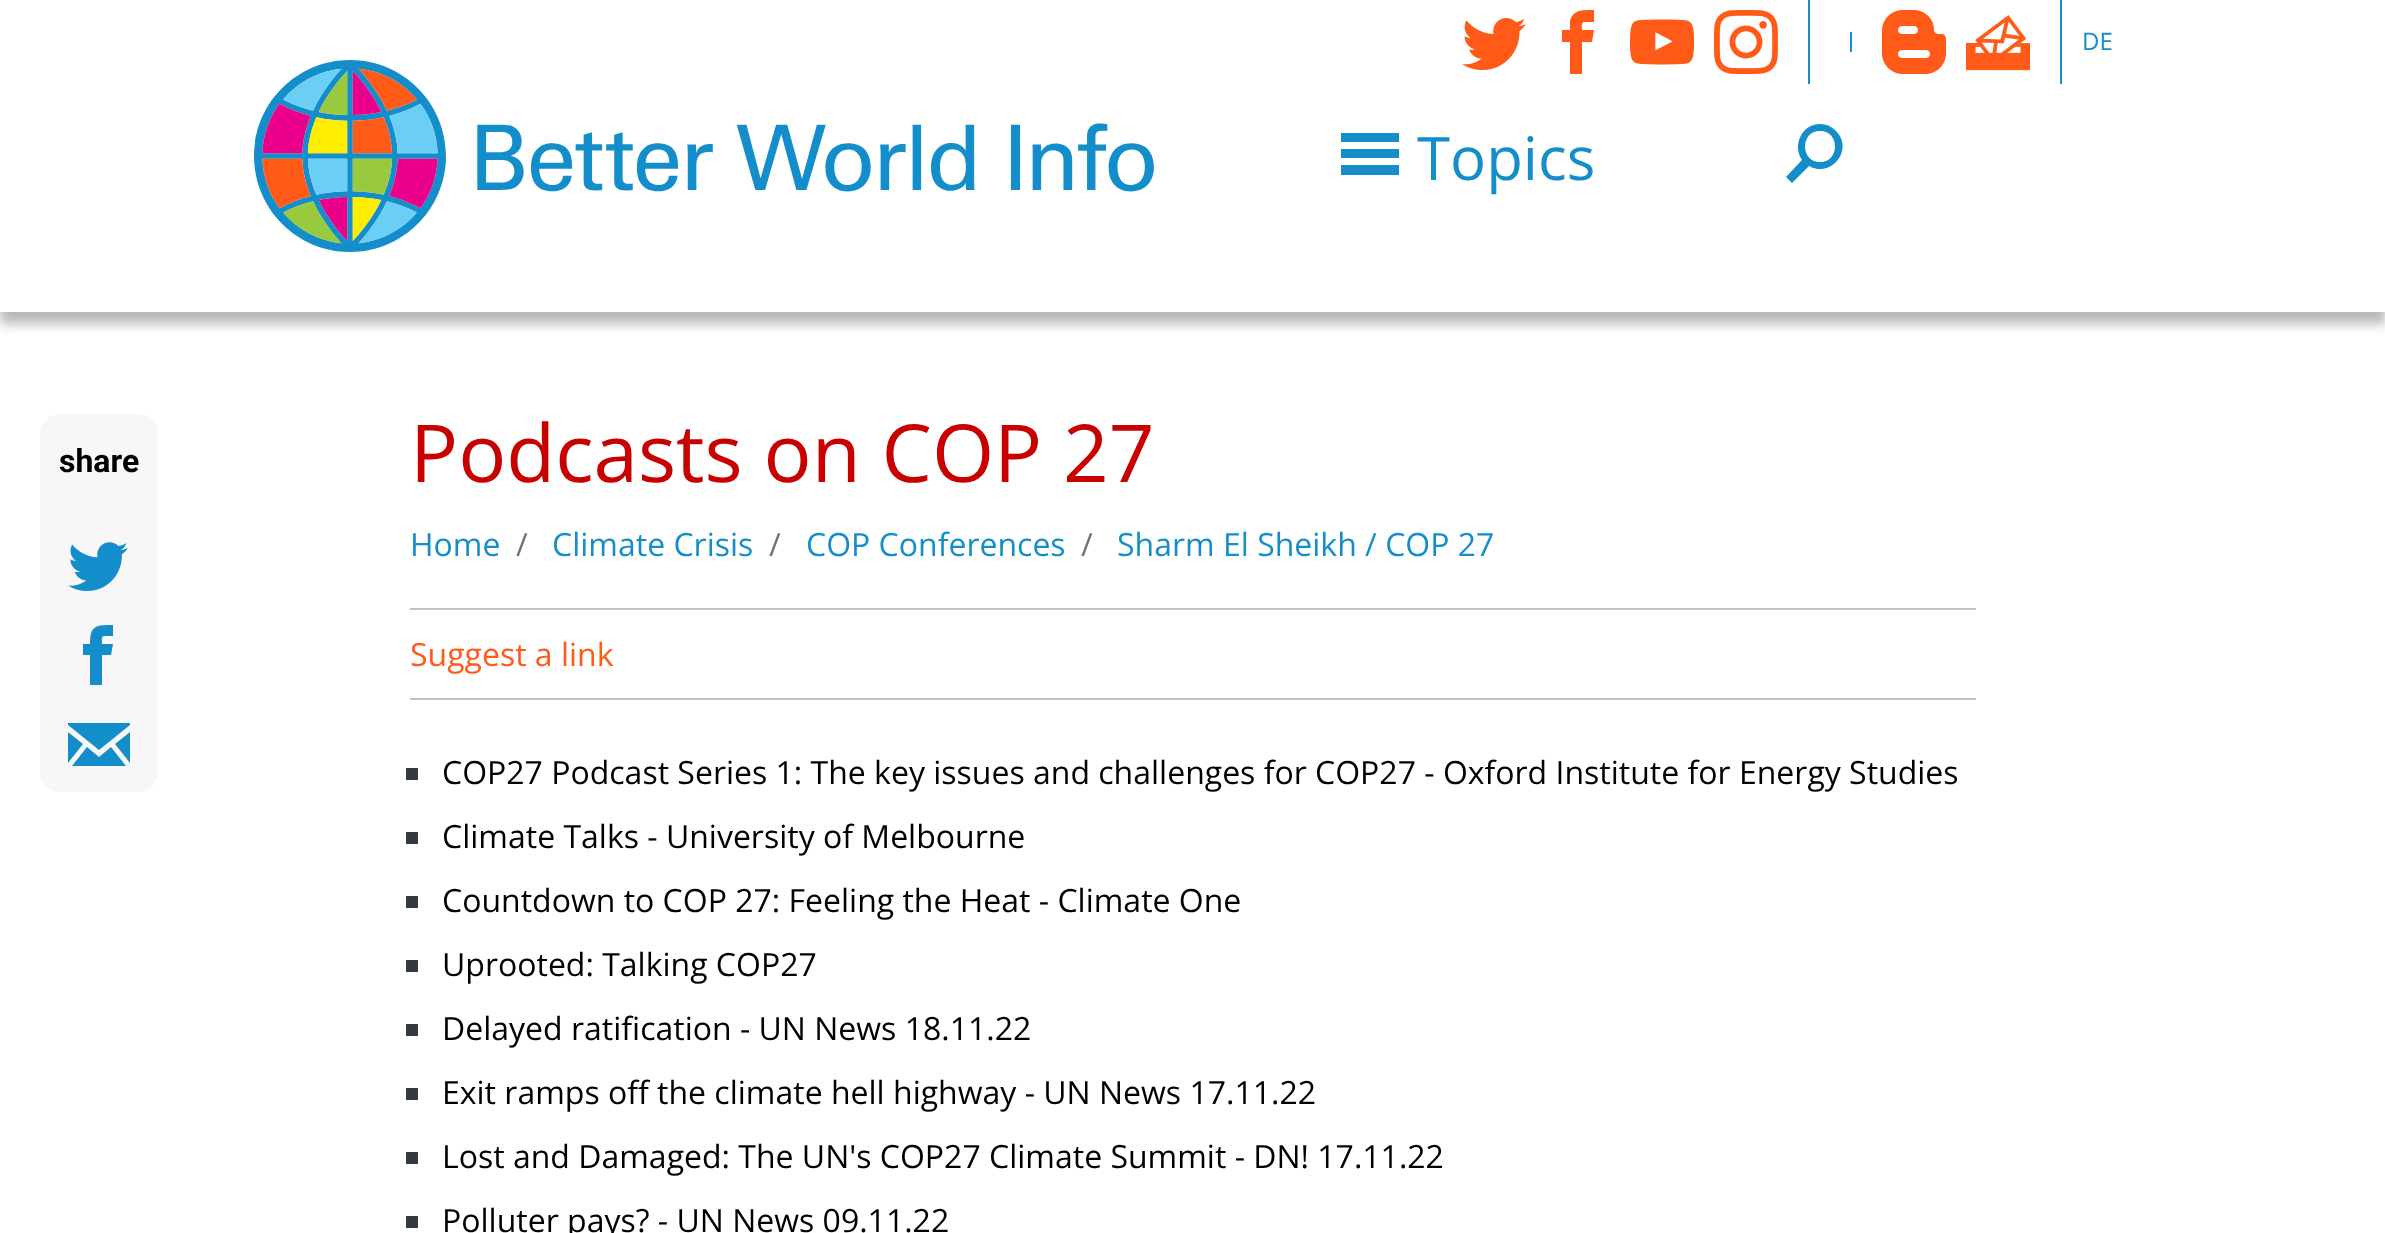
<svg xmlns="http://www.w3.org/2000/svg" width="2385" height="1233">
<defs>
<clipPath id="clip1"><rect x="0" y="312" width="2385" height="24"/></clipPath>
</defs>
<rect width="100%" height="100%" fill="#fff"/>
<g clip-path="url(#clip1)">
<rect y="12" width="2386" height="312" fill="#b8b8b8" filter="blur(6px)"/>
</g>
<rect x="1808" width="2" height="84" fill="#148eca"/>
<image x="1462" y="18" width="64" height="52" href="media/1.png"/>
<path d="M1584 22h10v-12c-10 0-22-1-24 12v8h-8v12h8v32h12v-32h10l2-12h-12c0-2-1-8 2-8z" fill="#ff5a18"/>
<image x="1630" y="19" width="64" height="46" href="media/2.png"/>
<image x="1714" y="10" width="64" height="64" href="media/3.png"/>
<rect x="1850" y="32" width="2" height="20" fill="#148eca"/>
<rect x="2060" width="2" height="84" fill="#148eca"/>
<image x="1882" y="10" width="64" height="64" href="media/4.png"/>
<image x="1966" y="15" width="64" height="56" href="media/5.png"/>
<text x="2082" y="50" style="font-family:Open Sans;font-size:24px;fill:#148eca">DE</text>
<image x="254" y="60" width="900" height="192" href="media/6.png"/>
<text x="1417" y="180" style="font-family:Open Sans;font-size:60px;fill:#148eca">Topics</text>
<path d="M1341 149h58v9h-58zm0-16h58v9h-58zm0 32h58v10h-58z" fill="#148eca"/>
<path d="M1820 124c-18 0-28 21-18 36l-16 17l6 6l17-17c23 13 46-18 26-36c-4-4-9-6-15-6zm0 38c-20 0-20-31 0-31c20 0 20 31 0 31z" fill="#148eca"/>
<rect x="40" y="414" width="118" height="378" rx="20" fill="#f7f7f7"/>
<text x="59" y="472" style="font-family:Roboto;font-size:32px;font-weight:bold;fill:#000">share</text>
<image x="68" y="542" width="60" height="49" href="media/7.png"/>
<path d="M104 636h9v-11c-17 0-23 0-23 19h-7v11h7v30h12v-30h9l2-11h-11c0-2-1-8 2-8z" fill="#148eca"/>
<path d="M99 757l-12-10l-15 19h54l-15-19zm31-25l-15 12l15 19zm-62 31l15-19l-15-12zm0-40v2l31 25l31-25v-2z" fill="#148eca"/>
<text x="410" y="482" style="font-family:Open Sans;font-size:80px;fill:#c80000">Podcasts on COP 27</text>
<text x="410" y="556" style="font-family:Open Sans;font-size:32px;fill:#148eca">Home</text>
<text x="516" y="556" style="font-family:Open Sans;font-size:32px;fill:#6c757d">/</text>
<text x="552" y="556" style="font-family:Open Sans;font-size:32px;fill:#148eca">Climate Crisis</text>
<text x="769" y="556" style="font-family:Open Sans;font-size:32px;fill:#6c757d">/</text>
<text x="806" y="556" style="font-family:Open Sans;font-size:32px;fill:#148eca">COP Conferences</text>
<text x="1081" y="556" style="font-family:Open Sans;font-size:32px;fill:#6c757d">/</text>
<text x="1117" y="556" style="font-family:Open Sans;font-size:32px;fill:#148eca">Sharm El Sheikh / COP 27</text>
<rect x="410" y="608" width="1566" height="2" fill="#c0c0c0"/>
<rect x="410" y="698" width="1566" height="2" fill="#c0c0c0"/>
<text x="410" y="666" style="font-family:Open Sans;font-size:32px;fill:#ff5a18">Suggest a link</text>
<rect x="406" y="768" width="12" height="12" fill="#343a40"/>
<text x="442" y="784" style="font-family:Open Sans;font-size:32px;fill:#000">COP27 Podcast Series 1: The key issues and challenges for COP27 - Oxford Institute for Energy Studies</text>
<rect x="406" y="832" width="12" height="12" fill="#343a40"/>
<text x="442" y="848" style="font-family:Open Sans;font-size:32px;fill:#000">Climate Talks - University of Melbourne</text>
<rect x="406" y="896" width="12" height="12" fill="#343a40"/>
<text x="442" y="912" style="font-family:Open Sans;font-size:32px;fill:#000">Countdown to COP 27: Feeling the Heat - Climate One</text>
<rect x="406" y="960" width="12" height="12" fill="#343a40"/>
<text x="442" y="976" style="font-family:Open Sans;font-size:32px;fill:#000">Uprooted: Talking COP27</text>
<rect x="406" y="1024" width="12" height="12" fill="#343a40"/>
<text x="442" y="1040" style="font-family:Open Sans;font-size:32px;fill:#000">Delayed ratification - UN News 18.11.22</text>
<rect x="406" y="1088" width="12" height="12" fill="#343a40"/>
<text x="442" y="1104" style="font-family:Open Sans;font-size:32px;fill:#000">Exit ramps off the climate hell highway - UN News 17.11.22</text>
<rect x="406" y="1152" width="12" height="12" fill="#343a40"/>
<text x="442" y="1168" style="font-family:Open Sans;font-size:32px;fill:#000">Lost and Damaged: The UN's COP27 Climate Summit - DN! 17.11.22</text>
<rect x="406" y="1216" width="12" height="12" fill="#343a40"/>
<text x="442" y="1232" style="font-family:Open Sans;font-size:32px;fill:#000">Polluter pays? - UN News 09.11.22</text>
</svg>
